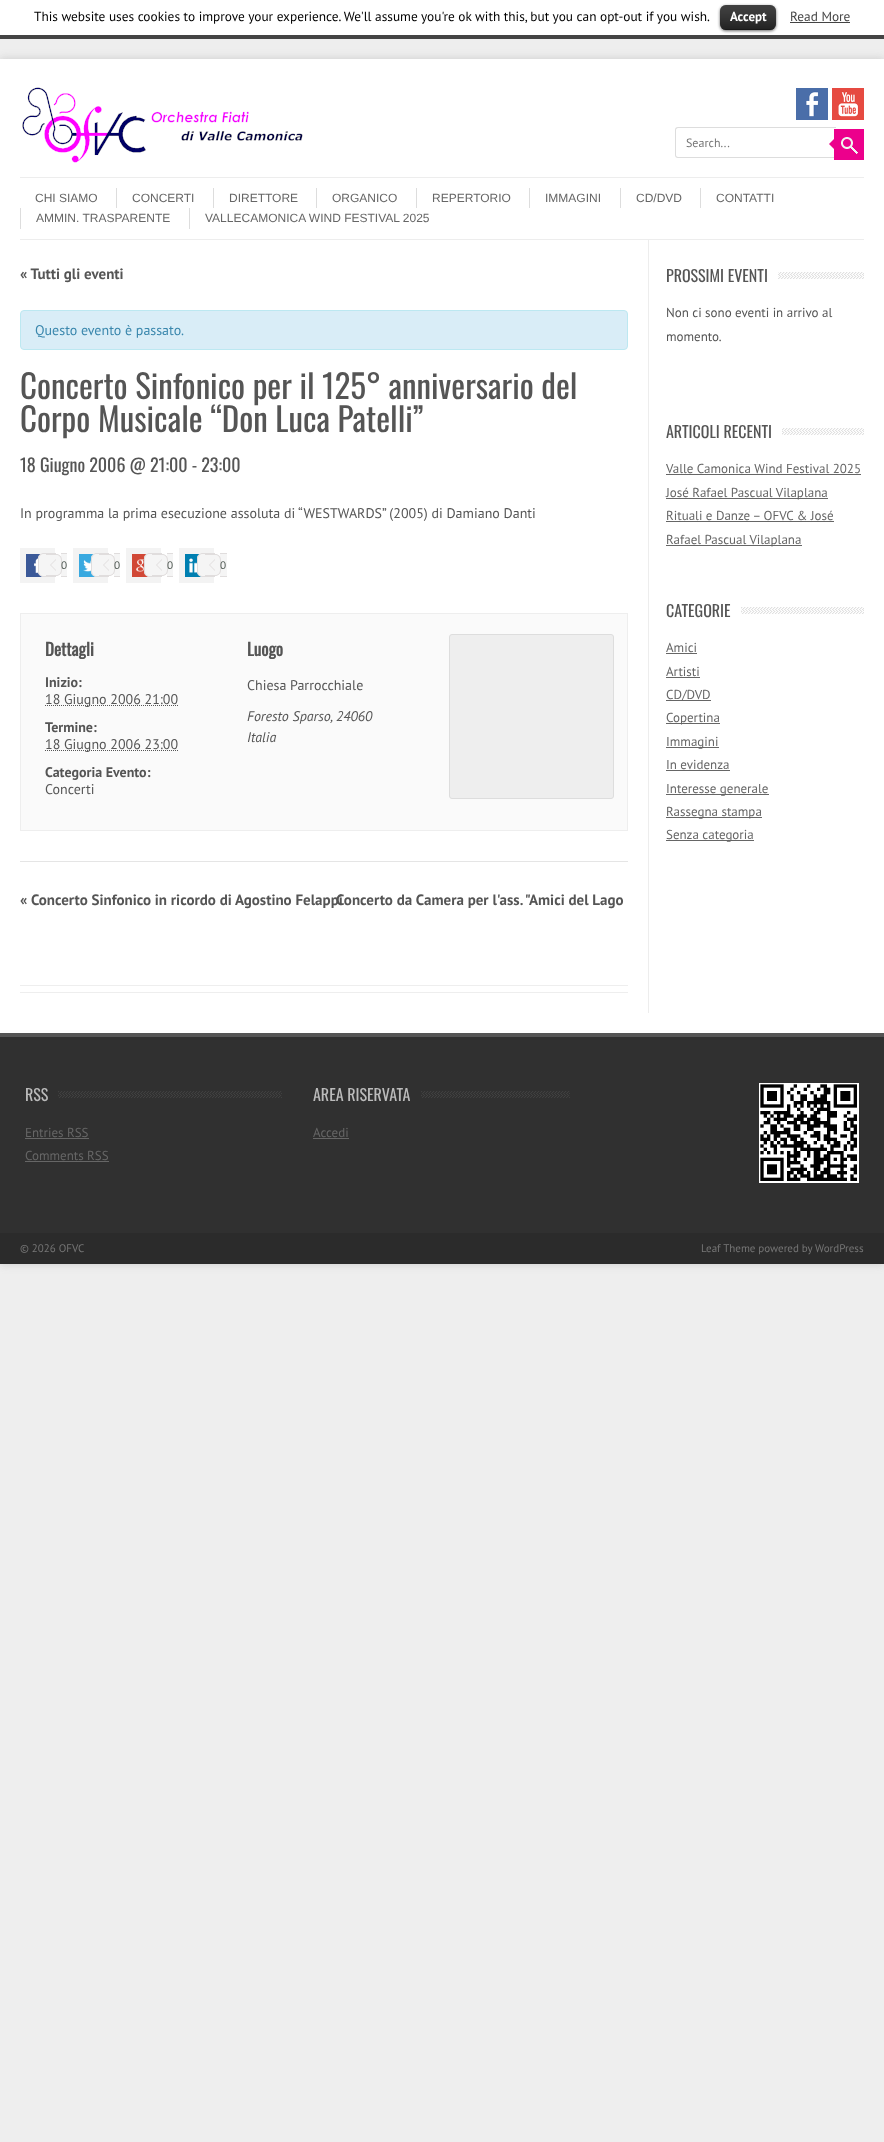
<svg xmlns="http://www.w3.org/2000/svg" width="884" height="2142">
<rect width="100%" height="100%" fill="#eee"/>
<rect width="884" height="35" fill="#fff"/>
<rect y="35" width="884" height="4" fill="#444"/>
<text x="34" y="21" style="font-family:PT Sans;font-size:13.33px;fill:#000">This website uses cookies to improve your experience. We'll assume you're ok with this, but you can opt-out if you wish.</text>
<rect x="720" y="6" width="56" height="25" rx="6" fill="#00000099" filter="blur(1.5px)"/>
<rect x="720" y="5" width="56" height="25" rx="6" fill="#000"/>
<image x="720" y="5" width="56" height="25" href="media/1.png"/>
<rect x="723" y="29" width="50" height="1" fill="#00000040"/>
<text x="730" y="21" style="font-family:PT Sans;font-size:13px;font-weight:bold;fill:#fff">Accept</text>
<text x="790" y="21" style="font-family:PT Sans;font-size:13.33px;fill:#444">Read More</text>
<rect x="790" y="22" width="60" height="1" fill="#444"/>
<rect y="59" width="884" height="1205" fill="#96969666" filter="blur(4px)"/>
<rect y="59" width="884" height="974" fill="#fff"/>
<image x="22" y="87" width="281" height="76" href="media/2.png"/>
<image x="796" y="88" width="32" height="32" href="media/3.png"/>
<image x="832" y="88" width="32" height="32" href="media/4.png"/>
<path d="M678 127h158v31h-158c-2 0-3-1-3-3v-25c0-2 1-3 3-3zm0 1h158v29h-158c-1 0-2-1-2-2v-25c0-1 1-2 2-2z" fill="#ddd" fill-rule="evenodd"/>
<text x="686" y="147" style="font-family:PT Sans;font-size:12px;fill:#757575">Search...</text>
<rect x="834" y="129" width="30" height="31" fill="#ec008c"/>
<image x="841" y="137" width="17" height="17" href="media/5.png"/>
<path d="M834 139v10l-5-5z" fill="#ec008c"/>
<rect x="20" y="177" width="844" height="1" fill="#ededed"/>
<rect x="20" y="239" width="844" height="1" fill="#ededed"/>
<text x="35" y="202" style="font-family:Liberation Sans;font-size:12px;fill:#666">CHI SIAMO</text>
<rect x="116" y="188" width="1" height="20" fill="#ddd"/>
<text x="132" y="202" style="font-family:Liberation Sans;font-size:12px;fill:#666">CONCERTI</text>
<rect x="213" y="188" width="1" height="20" fill="#ddd"/>
<text x="229" y="202" style="font-family:Liberation Sans;font-size:12px;fill:#666">DIRETTORE</text>
<rect x="316" y="188" width="1" height="20" fill="#ddd"/>
<text x="332" y="202" style="font-family:Liberation Sans;font-size:12px;fill:#666">ORGANICO</text>
<rect x="416" y="188" width="1" height="20" fill="#ddd"/>
<text x="432" y="202" style="font-family:Liberation Sans;font-size:12px;fill:#666">REPERTORIO</text>
<rect x="529" y="188" width="1" height="20" fill="#ddd"/>
<text x="545" y="202" style="font-family:Liberation Sans;font-size:12px;fill:#666">IMMAGINI</text>
<rect x="620" y="188" width="1" height="20" fill="#ddd"/>
<text x="636" y="202" style="font-family:Liberation Sans;font-size:12px;fill:#666">CD/DVD</text>
<rect x="700" y="188" width="1" height="20" fill="#ddd"/>
<text x="716" y="202" style="font-family:Liberation Sans;font-size:12px;fill:#666">CONTATTI</text>
<rect x="20" y="208" width="1" height="21" fill="#ddd"/>
<text x="36" y="222" style="font-family:Liberation Sans;font-size:12px;fill:#666">AMMIN. TRASPARENTE</text>
<rect x="189" y="208" width="1" height="21" fill="#ddd"/>
<text x="205" y="222" style="font-family:Liberation Sans;font-size:12px;fill:#666">VALLECAMONICA WIND FESTIVAL 2025</text>
<rect x="648" y="240" width="1" height="773" fill="#ededed"/>
<text x="20" y="279" style="font-family:PT Sans;font-size:15px;font-weight:bold;fill:#555">« Tutti gli eventi</text>
<rect x="20.5" y="310.5" width="607" height="39" rx="3.5" fill="#d9edf7" stroke="#bce8f1"/>
<text x="35" y="335" style="font-family:PT Sans;font-size:14px;fill:#3a87ad">Questo evento è passato.</text>
<text x="20" y="399" style="font-family:Oswald;font-size:33px;fill:#555">Concerto Sinfonico per il 125° anniversario del</text>
<text x="20" y="432" style="font-family:Oswald;font-size:33px;fill:#555">Corpo Musicale “Don Luca Patelli”</text>
<text x="20" y="472" style="font-family:Oswald;font-size:18px;fill:#555">18 Giugno 2006 @ 21:00 - 23:00</text>
<text x="20" y="518" style="font-family:PT Sans;font-size:14px;fill:#555">In programma la prima esecuzione assoluta di “WESTWARDS” (2005) di Damiano Danti</text>
<rect x="20" y="548" width="35" height="35" fill="#f3f3f3"/>
<rect x="73" y="548" width="35" height="35" fill="#f3f3f3"/>
<rect x="126" y="548" width="35" height="35" fill="#f3f3f3"/>
<rect x="179" y="548" width="35" height="35" fill="#f3f3f3"/>
<image x="26" y="554" width="18" height="23" href="media/6.png"/>
<path d="M44 553h12v24h-12c-3.5 0-6-2.5-6-6v-12c0-3.5 2.5-6 6-6z" fill="#f5f5f5"/>
<path d="M44 553h12v24h-12c-3.5 0-6-2.5-6-6v-12c0-3.5 2.5-6 6-6zm0 1h12v22h-12c-3 0-5-2-5-5v-12c0-3 2-5 5-5z" fill="#e0dddd" fill-rule="evenodd"/>
<rect x="61" y="553" width="6" height="24" fill="#f5f5f5"/>
<rect x="61" y="553" width="6" height="1" fill="#e0dddd"/>
<rect x="61" y="576" width="6" height="1" fill="#e0dddd"/>
<path d="M46 554h10c3.5 0 6 2.5 6 6v10c0 3.5-2.5 6-6 6h-10z" fill="#f5f5f5"/>
<path d="M46 554h10c3.5 0 6 2.5 6 6v10c0 3.5-2.5 6-6 6h-10zm0 1h10c3 0 5 2 5 5v10c0 3-2 5-5 5h-10z" fill="#e0dddd" fill-rule="evenodd"/>
<path d="M56 559v12l-6-6z" fill="#e0dddd"/>
<path d="M56 560v10l-5-5z" fill="#f5f5f5"/>
<text x="61" y="569" style="font-family:Liberation Sans;font-size:11px;fill:#555e58">0</text>
<image x="79" y="554" width="18" height="23" href="media/7.png"/>
<path d="M97 553h12v24h-12c-3.5 0-6-2.5-6-6v-12c0-3.5 2.5-6 6-6z" fill="#f5f5f5"/>
<path d="M97 553h12v24h-12c-3.5 0-6-2.5-6-6v-12c0-3.5 2.5-6 6-6zm0 1h12v22h-12c-3 0-5-2-5-5v-12c0-3 2-5 5-5z" fill="#e0dddd" fill-rule="evenodd"/>
<rect x="114" y="553" width="6" height="24" fill="#f5f5f5"/>
<rect x="114" y="553" width="6" height="1" fill="#e0dddd"/>
<rect x="114" y="576" width="6" height="1" fill="#e0dddd"/>
<path d="M99 554h10c3.5 0 6 2.5 6 6v10c0 3.5-2.5 6-6 6h-10z" fill="#f5f5f5"/>
<path d="M99 554h10c3.5 0 6 2.5 6 6v10c0 3.5-2.5 6-6 6h-10zm0 1h10c3 0 5 2 5 5v10c0 3-2 5-5 5h-10z" fill="#e0dddd" fill-rule="evenodd"/>
<path d="M109 559v12l-6-6z" fill="#e0dddd"/>
<path d="M109 560v10l-5-5z" fill="#f5f5f5"/>
<text x="114" y="569" style="font-family:Liberation Sans;font-size:11px;fill:#555e58">0</text>
<image x="132" y="554" width="18" height="23" href="media/8.png"/>
<path d="M150 553h12v24h-12c-3.5 0-6-2.5-6-6v-12c0-3.5 2.5-6 6-6z" fill="#f5f5f5"/>
<path d="M150 553h12v24h-12c-3.5 0-6-2.5-6-6v-12c0-3.5 2.5-6 6-6zm0 1h12v22h-12c-3 0-5-2-5-5v-12c0-3 2-5 5-5z" fill="#e0dddd" fill-rule="evenodd"/>
<rect x="167" y="553" width="6" height="24" fill="#f5f5f5"/>
<rect x="167" y="553" width="6" height="1" fill="#e0dddd"/>
<rect x="167" y="576" width="6" height="1" fill="#e0dddd"/>
<path d="M152 554h10c3.5 0 6 2.5 6 6v10c0 3.5-2.5 6-6 6h-10z" fill="#f5f5f5"/>
<path d="M152 554h10c3.5 0 6 2.5 6 6v10c0 3.5-2.5 6-6 6h-10zm0 1h10c3 0 5 2 5 5v10c0 3-2 5-5 5h-10z" fill="#e0dddd" fill-rule="evenodd"/>
<path d="M162 559v12l-6-6z" fill="#e0dddd"/>
<path d="M162 560v10l-5-5z" fill="#f5f5f5"/>
<text x="167" y="569" style="font-family:Liberation Sans;font-size:11px;fill:#555e58">0</text>
<image x="185" y="554" width="18" height="23" href="media/9.png"/>
<path d="M203 553h12v24h-12c-3.5 0-6-2.5-6-6v-12c0-3.5 2.5-6 6-6z" fill="#f5f5f5"/>
<path d="M203 553h12v24h-12c-3.5 0-6-2.5-6-6v-12c0-3.5 2.5-6 6-6zm0 1h12v22h-12c-3 0-5-2-5-5v-12c0-3 2-5 5-5z" fill="#e0dddd" fill-rule="evenodd"/>
<rect x="220" y="553" width="7" height="24" fill="#f5f5f5"/>
<rect x="220" y="553" width="7" height="1" fill="#e0dddd"/>
<rect x="220" y="576" width="7" height="1" fill="#e0dddd"/>
<path d="M205 554h10c3.5 0 6 2.5 6 6v10c0 3.5-2.5 6-6 6h-10z" fill="#f5f5f5"/>
<path d="M205 554h10c3.5 0 6 2.5 6 6v10c0 3.5-2.5 6-6 6h-10zm0 1h10c3 0 5 2 5 5v10c0 3-2 5-5 5h-10z" fill="#e0dddd" fill-rule="evenodd"/>
<path d="M215 559v12l-6-6z" fill="#e0dddd"/>
<path d="M215 560v10l-5-5z" fill="#f5f5f5"/>
<text x="220" y="569" style="font-family:Liberation Sans;font-size:11px;fill:#555e58">0</text>
<rect x="20.5" y="613.5" width="607" height="217" fill="#fafafa" stroke="#eee"/>
<text x="45" y="656" style="font-family:Oswald;font-size:17px;font-weight:bold;fill:#555">Dettagli</text>
<text x="45" y="687" style="font-family:PT Sans;font-size:14px;font-weight:bold;fill:#555">Inizio:</text>
<path d="M45 705.5h133.5" fill="none" stroke="#555" stroke-dasharray="1 1"/>
<text x="45" y="704" style="font-family:PT Sans;font-size:14px;fill:#555">18 Giugno 2006 21:00</text>
<text x="45" y="732" style="font-family:PT Sans;font-size:14px;font-weight:bold;fill:#555">Termine:</text>
<path d="M45 750.5h133.5" fill="none" stroke="#555" stroke-dasharray="1 1"/>
<text x="45" y="749" style="font-family:PT Sans;font-size:14px;fill:#555">18 Giugno 2006 23:00</text>
<text x="45" y="777" style="font-family:PT Sans;font-size:14px;font-weight:bold;fill:#555">Categoria Evento:</text>
<text x="45" y="794" style="font-family:PT Sans;font-size:14px;fill:#555">Concerti</text>
<text x="247" y="656" style="font-family:Oswald;font-size:17px;font-weight:bold;fill:#555">Luogo</text>
<text x="247" y="690" style="font-family:PT Sans;font-size:14px;fill:#555">Chiesa Parrocchiale</text>
<text x="247" y="721" style="font-family:PT Sans;font-size:14px;font-style:italic;fill:#555">Foresto Sparso,</text>
<text x="336" y="721" style="font-family:PT Sans;font-size:14px;font-style:italic;fill:#555">24060</text>
<text x="247" y="742" style="font-family:PT Sans;font-size:14px;font-style:italic;fill:#555">Italia</text>
<rect x="449.5" y="634.5" width="164" height="164" rx="2.5" fill="#eee" stroke="#ddd"/>
<rect x="20" y="861" width="608" height="1" fill="#e5e5e5"/>
<text x="20" y="905" style="font-family:PT Sans;font-size:15px;font-weight:bold;fill:#555">« Concerto Sinfonico in ricordo di Agostino Felappi</text>
<text x="336" y="905" style="font-family:PT Sans;font-size:15px;font-weight:bold;fill:#555">Concerto da Camera per l'ass. "Amici del Lago</text>
<rect x="20" y="985" width="608" height="1" fill="#eee"/>
<rect x="20" y="992" width="608" height="1" fill="#eee"/>
<image x="778" y="272" width="86" height="7" href="media/10.png"/>
<text x="666" y="282" style="font-family:Oswald;font-size:16px;fill:#555">PROSSIMI EVENTI</text>
<text x="666" y="317" style="font-family:PT Sans;font-size:13px;fill:#555">Non ci sono eventi in arrivo al</text>
<text x="666" y="341" style="font-family:PT Sans;font-size:13px;fill:#555">momento.</text>
<image x="782" y="428" width="82" height="7" href="media/11.png"/>
<text x="666" y="438" style="font-family:Oswald;font-size:16px;fill:#555">ARTICOLI RECENTI</text>
<text x="666" y="473" style="font-family:PT Sans;font-size:13px;fill:#666">Valle Camonica Wind Festival 2025</text>
<rect x="666" y="474" width="195" height="1" fill="#666"/>
<rect x="666" y="498" width="162" height="1" fill="#666"/>
<text x="666" y="497" style="font-family:PT Sans;font-size:13px;fill:#666">José Rafael Pascual Vilaplana</text>
<text x="666" y="520" style="font-family:PT Sans;font-size:13px;fill:#666">Rituali e Danze – OFVC &amp; José</text>
<rect x="666" y="521" width="168" height="1" fill="#666"/>
<rect x="666" y="545" width="136" height="1" fill="#666"/>
<text x="666" y="544" style="font-family:PT Sans;font-size:13px;fill:#666">Rafael Pascual Vilaplana</text>
<image x="741" y="607" width="123" height="7" href="media/12.png"/>
<text x="666" y="617" style="font-family:Oswald;font-size:16px;fill:#555">CATEGORIE</text>
<text x="666" y="652" style="font-family:PT Sans;font-size:13px;fill:#666">Amici</text>
<rect x="666" y="653" width="31" height="1" fill="#666"/>
<text x="666" y="676" style="font-family:PT Sans;font-size:13px;fill:#666">Artisti</text>
<rect x="666" y="677" width="34" height="1" fill="#666"/>
<rect x="666" y="700" width="45" height="1" fill="#666"/>
<text x="666" y="699" style="font-family:PT Sans;font-size:13px;fill:#666">CD/DVD</text>
<rect x="666" y="723" width="54" height="1" fill="#666"/>
<text x="666" y="722" style="font-family:PT Sans;font-size:13px;fill:#666">Copertina</text>
<rect x="666" y="747" width="53" height="1" fill="#666"/>
<text x="666" y="746" style="font-family:PT Sans;font-size:13px;fill:#666">Immagini</text>
<text x="666" y="769" style="font-family:PT Sans;font-size:13px;fill:#666">In evidenza</text>
<rect x="666" y="770" width="64" height="1" fill="#666"/>
<rect x="666" y="794" width="103" height="1" fill="#666"/>
<text x="666" y="793" style="font-family:PT Sans;font-size:13px;fill:#666">Interesse generale</text>
<rect x="666" y="817" width="96" height="1" fill="#666"/>
<text x="666" y="816" style="font-family:PT Sans;font-size:13px;fill:#666">Rassegna stampa</text>
<rect x="666" y="840" width="88" height="1" fill="#666"/>
<text x="666" y="839" style="font-family:PT Sans;font-size:13px;fill:#666">Senza categoria</text>
<rect y="1037" width="884" height="196" fill="#303030"/>
<rect y="1033" width="884" height="4" fill="#555"/>
<image x="58" y="1091" width="224" height="7" href="media/13.png"/>
<text x="25" y="1101" style="font-family:Oswald;font-size:16px;fill:#bbb">RSS</text>
<text x="25" y="1137" style="font-family:PT Sans;font-size:13px;fill:#666">Entries RSS</text>
<rect x="25" y="1138" width="64" height="1" fill="#666"/>
<text x="25" y="1160" style="font-family:PT Sans;font-size:13px;fill:#666">Comments RSS</text>
<rect x="25" y="1161" width="84" height="1" fill="#666"/>
<image x="421" y="1091" width="149" height="7" href="media/14.png"/>
<text x="313" y="1101" style="font-family:Oswald;font-size:16px;fill:#bbb">AREA RISERVATA</text>
<text x="313" y="1137" style="font-family:PT Sans;font-size:13px;fill:#666">Accedi</text>
<rect x="313" y="1138" width="36" height="1" fill="#666"/>
<image x="759" y="1083" width="100" height="100" href="media/15.png"/>
<rect y="1233" width="884" height="31" fill="#2b2b2b"/>
<text x="20" y="1252" style="font-family:PT Sans;font-size:11px;fill:#757575">© 2026 OFVC</text>
<text x="701" y="1252" style="font-family:PT Sans;font-size:11px;fill:#757575">Leaf Theme powered by WordPress</text>
</svg>
